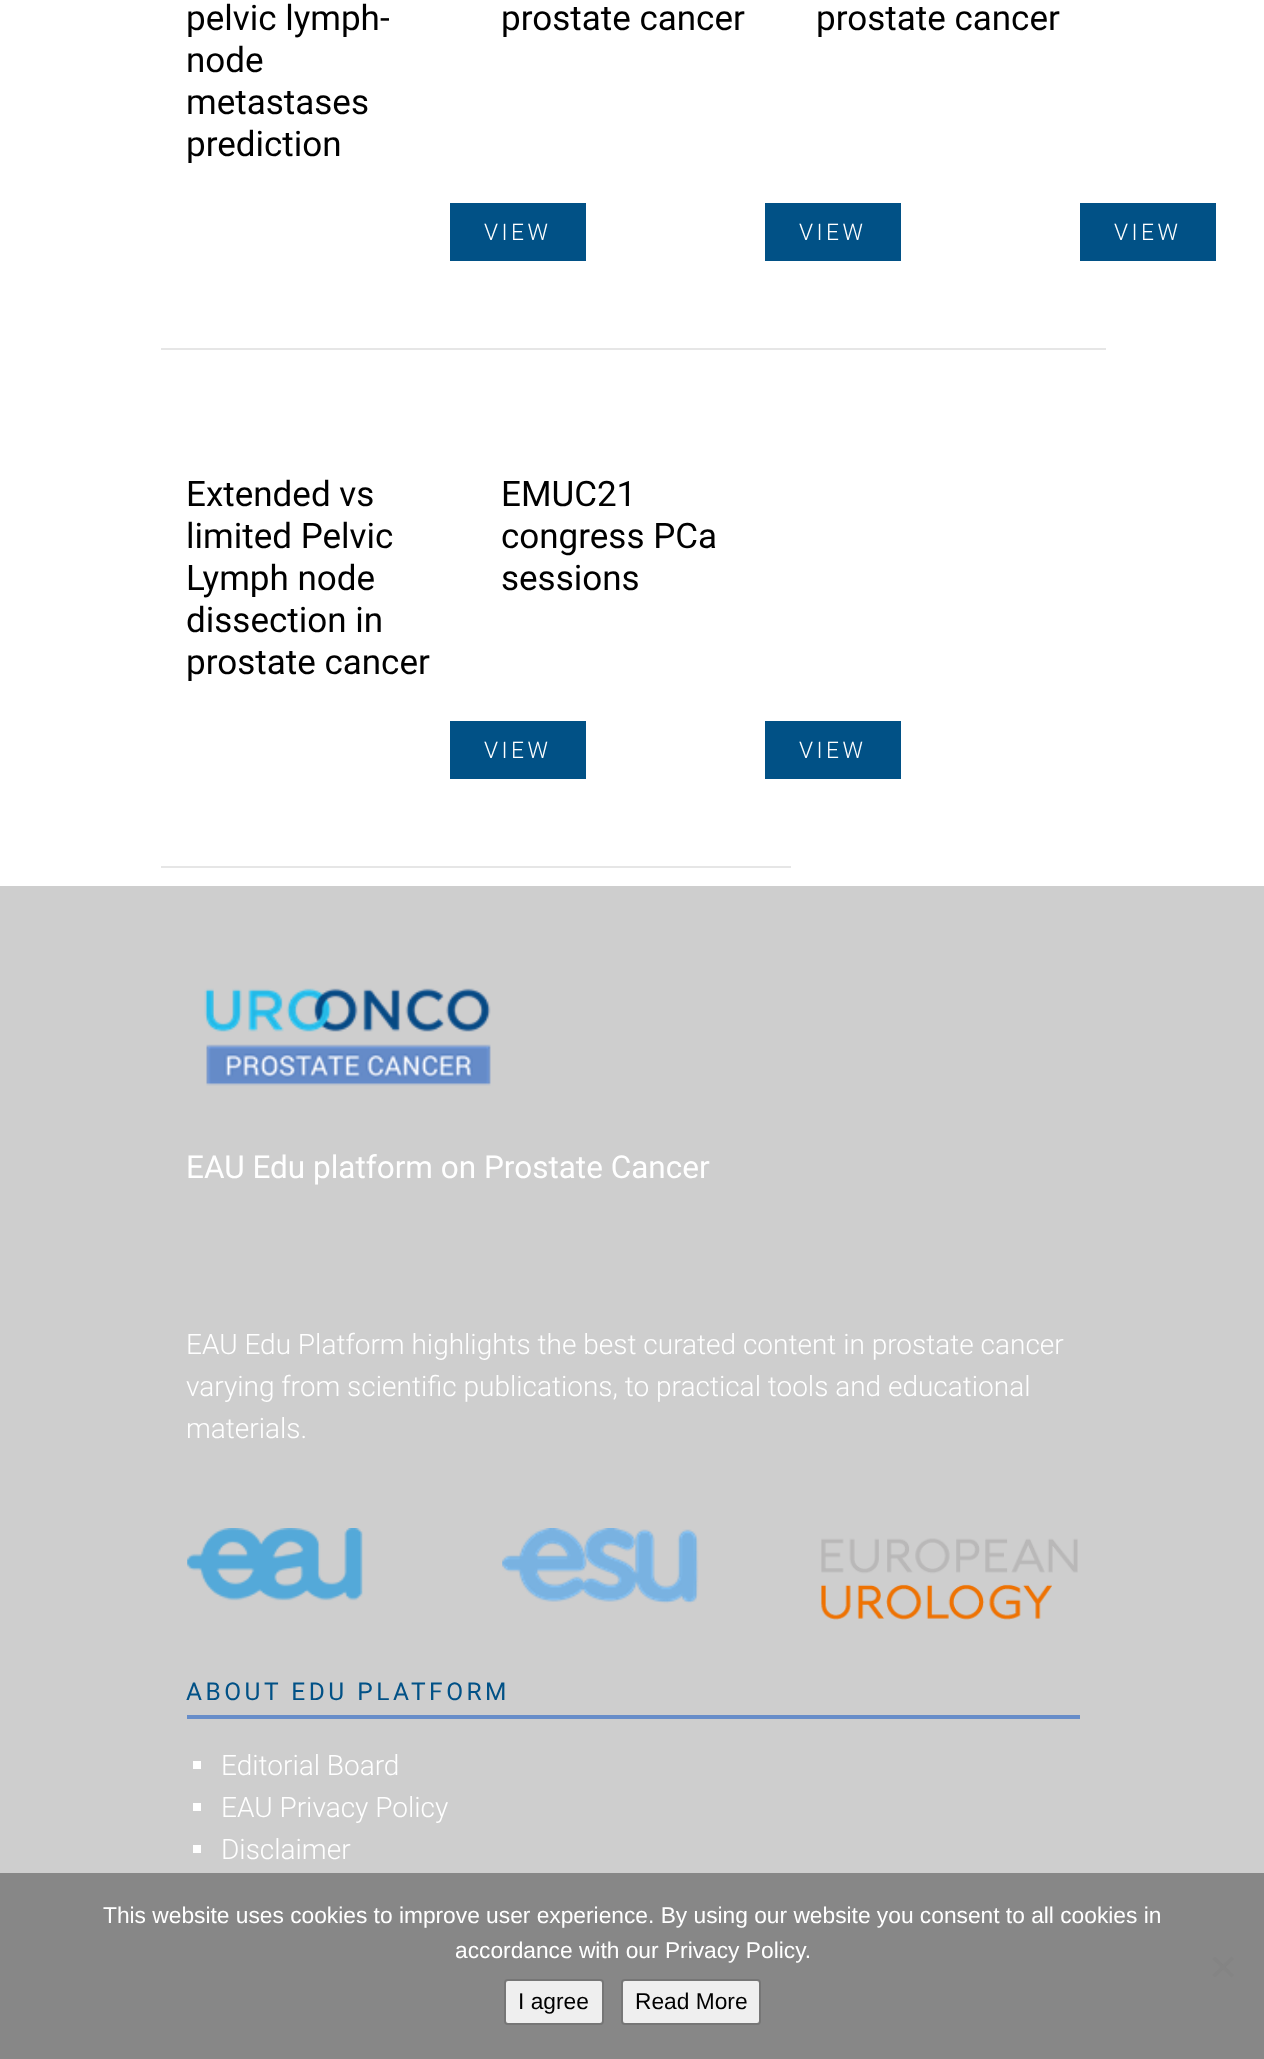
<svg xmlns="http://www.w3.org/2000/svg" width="1264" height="2059">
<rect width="100%" height="100%" fill="#fff"/>
<rect x="161" y="348" width="945" height="2" fill="#e6e6e6"/>
<text x="186" y="30" style="font-family:Roboto;font-size:35px;fill:#000">pelvic lymph-</text>
<text x="186" y="72" style="font-family:Roboto;font-size:35px;fill:#000">node</text>
<text x="186" y="114" style="font-family:Roboto;font-size:35px;fill:#000">metastases</text>
<text x="186" y="156" style="font-family:Roboto;font-size:35px;fill:#000">prediction</text>
<rect x="450" y="203" width="136" height="58" fill="#015186"/>
<text x="484" y="240" style="font-family:Roboto;font-size:22.75px;font-weight:300;letter-spacing:3.5px;fill:#fff">VIEW</text>
<text x="501" y="30" style="font-family:Roboto;font-size:35px;fill:#000">prostate cancer</text>
<rect x="765" y="203" width="136" height="58" fill="#015186"/>
<text x="799" y="240" style="font-family:Roboto;font-size:22.75px;font-weight:300;letter-spacing:3.5px;fill:#fff">VIEW</text>
<text x="816" y="30" style="font-family:Roboto;font-size:35px;fill:#000">prostate cancer</text>
<rect x="1080" y="203" width="136" height="58" fill="#015186"/>
<text x="1114" y="240" style="font-family:Roboto;font-size:22.75px;font-weight:300;letter-spacing:3.5px;fill:#fff">VIEW</text>
<rect x="161" y="866" width="630" height="2" fill="#e6e6e6"/>
<text x="186" y="506" style="font-family:Roboto;font-size:35px;fill:#000">Extended vs</text>
<text x="186" y="548" style="font-family:Roboto;font-size:35px;fill:#000">limited Pelvic</text>
<text x="186" y="590" style="font-family:Roboto;font-size:35px;fill:#000">Lymph node</text>
<text x="186" y="632" style="font-family:Roboto;font-size:35px;fill:#000">dissection in</text>
<text x="186" y="674" style="font-family:Roboto;font-size:35px;fill:#000">prostate cancer</text>
<rect x="450" y="721" width="136" height="58" fill="#015186"/>
<text x="484" y="758" style="font-family:Roboto;font-size:22.75px;font-weight:300;letter-spacing:3.5px;fill:#fff">VIEW</text>
<text x="501" y="506" style="font-family:Roboto;font-size:35px;fill:#000">EMUC21</text>
<text x="501" y="548" style="font-family:Roboto;font-size:35px;fill:#000">congress PCa</text>
<text x="501" y="590" style="font-family:Roboto;font-size:35px;fill:#000">sessions</text>
<rect x="765" y="721" width="136" height="58" fill="#015186"/>
<text x="799" y="758" style="font-family:Roboto;font-size:22.75px;font-weight:300;letter-spacing:3.5px;fill:#fff">VIEW</text>
<rect y="886" width="1264" height="987" fill="#cecece"/>
<image x="204" y="988" width="287" height="98" href="media/1.png"/>
<text x="186" y="1178" style="font-family:Roboto;font-size:31.5px;fill:#fff">EAU Edu platform on Prostate Cancer</text>
<text x="186" y="1354" style="font-family:Roboto;font-size:28px;font-weight:300;fill:#fff">EAU Edu Platform highlights the best curated content in prostate cancer</text>
<text x="186" y="1396" style="font-family:Roboto;font-size:28px;font-weight:300;fill:#fff">varying from scientific publications, to practical tools and educational</text>
<text x="186" y="1438" style="font-family:Roboto;font-size:28px;font-weight:300;fill:#fff">materials.</text>
<image x="187" y="1528" width="176" height="73" href="media/2.png"/>
<image x="502" y="1528" width="197" height="76" href="media/3.png"/>
<image x="821" y="1538" width="257" height="82" href="media/4.png"/>
<rect x="187" y="1715" width="893" height="4" fill="#678dc9"/>
<text x="186" y="1700" style="font-family:Roboto;font-size:24.5px;letter-spacing:3.5px;fill:#015186">ABOUT EDU PLATFORM</text>
<rect x="193" y="1761" width="8" height="8" fill="#fff"/>
<text x="221" y="1775" style="font-family:Roboto;font-size:28px;font-weight:300;fill:#fff">Editorial Board</text>
<rect x="193" y="1803" width="8" height="8" fill="#fff"/>
<text x="221" y="1817" style="font-family:Roboto;font-size:28px;font-weight:300;fill:#fff">EAU Privacy Policy</text>
<rect x="193" y="1845" width="8" height="8" fill="#fff"/>
<text x="221" y="1859" style="font-family:Roboto;font-size:28px;font-weight:300;fill:#fff">Disclaimer</text>
<rect y="1873" width="1264" height="186" fill="#878787"/>
<text x="103" y="1923" style="font-family:Liberation Sans;font-size:22.75px;fill:#fff">This website uses cookies to improve user experience. By using our website you consent to all cookies in</text>
<text x="455" y="1958" style="font-family:Liberation Sans;font-size:22.75px;fill:#fff">accordance with our Privacy Policy.</text>
<path d="M1231.5 1956.5l2.5 2.5l-19 18.5l-2.5-2.5z" fill="#848484"/>
<path d="M1212.5 1959l2.5-2.5l19 18.5l-2.5 2.5z" fill="#848484"/>
<rect x="505" y="1980" width="98" height="44" rx="3" fill="#efefef" stroke="#767676" stroke-width="2"/>
<text x="518" y="2009" style="font-family:Liberation Sans;font-size:22.75px;fill:#000">I agree</text>
<rect x="622" y="1980" width="138" height="44" rx="3" fill="#efefef" stroke="#767676" stroke-width="2"/>
<text x="635" y="2009" style="font-family:Liberation Sans;font-size:22.75px;fill:#000">Read More</text>
</svg>
